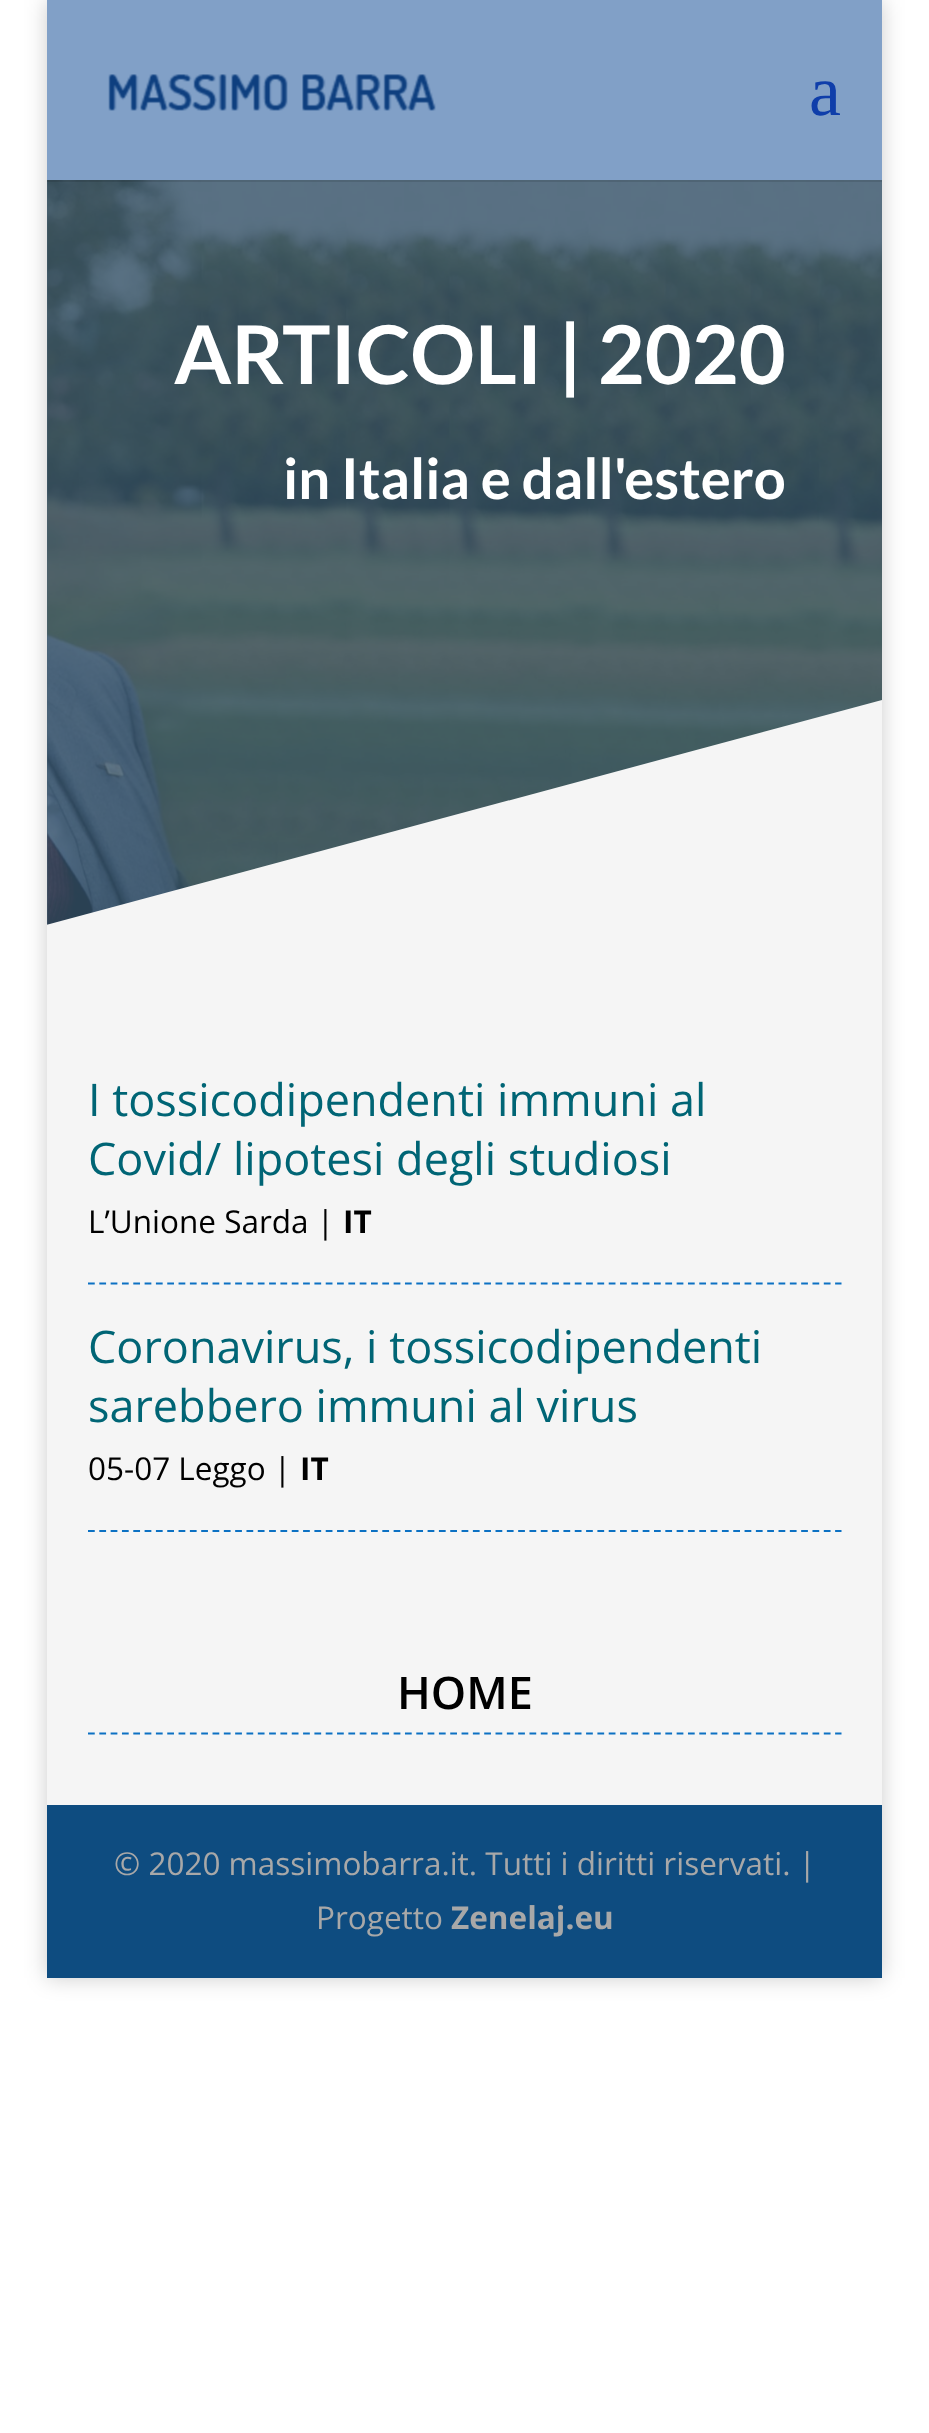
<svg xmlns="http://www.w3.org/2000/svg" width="929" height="2433">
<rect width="100%" height="100%" fill="#fff"/>
<rect x="47" width="835" height="1978" fill="#00000033" filter="blur(11px)"/>
<rect x="47" y="180" width="835" height="745" fill="#afafaf"/>
<image x="47" y="180" width="835" height="745" href="media/2.png"/>
<rect x="47" y="180" width="835" height="745" fill="#345168cc"/>
<path d="M47 2v180h835v-2h-835z" fill="#0000001a"/>
<rect x="47" width="835" height="180" fill="#81a0c7"/>
<image x="108" y="74" width="328" height="37" href="media/1.png"/>
<text x="809" y="115" style="font-family:Liberation Serif;font-size:72px;fill:#0f3eaa">a</text>
<text x="174" y="384" style="font-family:Lato;font-size:81px;font-weight:bold;fill:#fff">ARTICOLI | 2020</text>
<text x="283" y="499" style="font-family:Lato;font-size:56.25px;font-weight:bold;fill:#fff">in Italia e dall'estero</text>
<path d="M882 700v225h-836z" fill="#f5f5f5"/>
<rect x="47" y="925" width="835" height="880" fill="#f5f5f5"/>
<path d="M88 1283.5h753.5" fill="none" stroke="#0c71c3" stroke-width="2.2" stroke-dasharray="6.75 4.57"/>
<text x="88" y="1116" style="font-family:Open Sans;font-size:45px;fill:#006575">I tossicodipendenti immuni al</text>
<text x="88" y="1175" style="font-family:Open Sans;font-size:45px;fill:#006575">Covid/ lipotesi degli studiosi</text>
<text x="88" y="1233" style="font-family:Open Sans;font-size:31.5px;fill:#000">L’Unione Sarda |</text>
<text x="343" y="1233" style="font-family:Open Sans;font-size:31.5px;font-weight:bold;fill:#000">IT</text>
<path d="M88 1531h753.5" fill="none" stroke="#0c71c3" stroke-width="2.2" stroke-dasharray="6.75 4.57"/>
<text x="88" y="1363" style="font-family:Open Sans;font-size:45px;fill:#006575">Coronavirus, i tossicodipendenti</text>
<text x="88" y="1422" style="font-family:Open Sans;font-size:45px;fill:#006575">sarebbero immuni al virus</text>
<text x="88" y="1480" style="font-family:Open Sans;font-size:31.5px;fill:#000">05-07 Leggo |</text>
<text x="300" y="1480" style="font-family:Open Sans;font-size:31.5px;font-weight:bold;fill:#000">IT</text>
<path d="M88 1733.5h753.5" fill="none" stroke="#0c71c3" stroke-width="2.2" stroke-dasharray="6.75 4.57"/>
<text x="397" y="1709" style="font-family:Open Sans;font-size:45px;font-weight:600;fill:#000">HOME</text>
<rect x="47" y="1805" width="835" height="173" fill="#0e4c80"/>
<text x="114" y="1875" style="font-family:Open Sans;font-size:31.5px;fill:#a8a8a8">© 2020 massimobarra.it. Tutti i diritti riservati. |</text>
<text x="316" y="1929" style="font-family:Open Sans;font-size:31.5px;fill:#a8a8a8">Progetto</text>
<text x="451" y="1929" style="font-family:Open Sans;font-size:31.5px;font-weight:bold;fill:#a8a8a8">Zenelaj.eu</text>
</svg>
